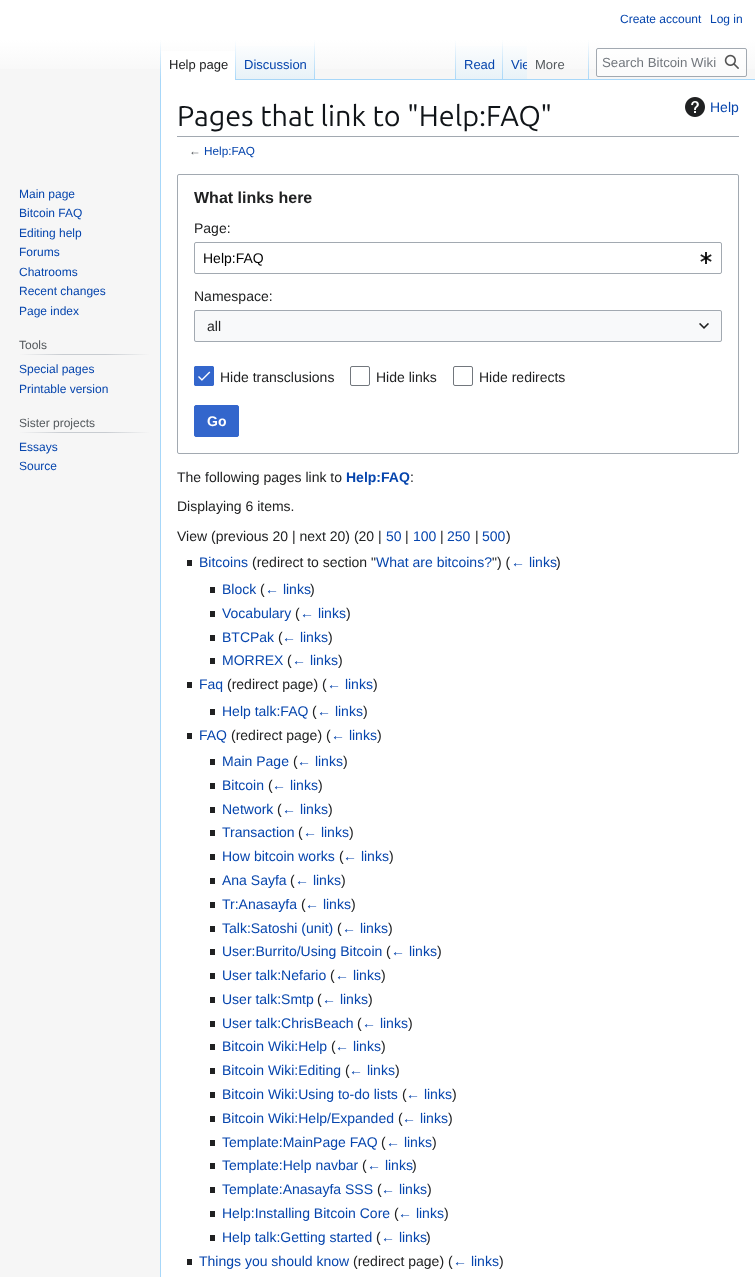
<svg xmlns="http://www.w3.org/2000/svg" width="755" height="1277">
<defs>
<linearGradient id="g1" gradientUnits="userSpaceOnUse" x1="378" y1="0" x2="378" y2="80"><stop offset="0.5" stop-color="#fff"/><stop offset="1" stop-color="#f6f6f6"/></linearGradient>
<linearGradient id="g2" gradientUnits="userSpaceOnUse" x1="161" y1="40" x2="161" y2="80"><stop offset="0" stop-color="#a7d7f9" stop-opacity="0"/><stop offset="1" stop-color="#a7d7f9"/></linearGradient>
<linearGradient id="g3" gradientUnits="userSpaceOnUse" x1="236" y1="40" x2="236" y2="80"><stop offset="0" stop-color="#fff"/><stop offset="1" stop-color="#a7d7f9"/></linearGradient>
<linearGradient id="g4" gradientUnits="userSpaceOnUse" x1="276" y1="80" x2="276" y2="40"><stop offset="0" stop-color="#77c1f6"/><stop offset="0.03" stop-color="#e8f2f8"/><stop offset="1" stop-color="#fff"/></linearGradient>
<linearGradient id="g5" gradientUnits="userSpaceOnUse" x1="315" y1="40" x2="315" y2="80"><stop offset="0" stop-color="#a7d7f9" stop-opacity="0"/><stop offset="1" stop-color="#a7d7f9"/></linearGradient>
<linearGradient id="g6" gradientUnits="userSpaceOnUse" x1="456" y1="40" x2="456" y2="80"><stop offset="0" stop-color="#a7d7f9" stop-opacity="0"/><stop offset="1" stop-color="#a7d7f9"/></linearGradient>
<linearGradient id="g7" gradientUnits="userSpaceOnUse" x1="480" y1="80" x2="480" y2="40"><stop offset="0" stop-color="#77c1f6"/><stop offset="0.03" stop-color="#e8f2f8"/><stop offset="1" stop-color="#fff"/></linearGradient>
<linearGradient id="g8" gradientUnits="userSpaceOnUse" x1="503" y1="40" x2="503" y2="80"><stop offset="0" stop-color="#a7d7f9" stop-opacity="0"/><stop offset="1" stop-color="#a7d7f9"/></linearGradient>
<linearGradient id="g9" gradientUnits="userSpaceOnUse" x1="515" y1="80" x2="515" y2="40"><stop offset="0" stop-color="#77c1f6"/><stop offset="0.03" stop-color="#e8f2f8"/><stop offset="1" stop-color="#fff"/></linearGradient>
<clipPath id="clip1"><rect x="503" y="40" width="24" height="40"/></clipPath>
<linearGradient id="g10" gradientUnits="userSpaceOnUse" x1="589" y1="40" x2="589" y2="80"><stop offset="0" stop-color="#a7d7f9" stop-opacity="0"/><stop offset="1" stop-color="#a7d7f9"/></linearGradient>
<linearGradient id="g11" gradientUnits="userSpaceOnUse" x1="19" y1="355" x2="150" y2="355"><stop offset="0" stop-color="#f6f6f6"/><stop offset="0.33" stop-color="#c8ccd1"/><stop offset="0.66" stop-color="#c8ccd1"/><stop offset="1" stop-color="#f6f6f6"/></linearGradient>
<linearGradient id="g12" gradientUnits="userSpaceOnUse" x1="19" y1="433" x2="150" y2="433"><stop offset="0" stop-color="#f6f6f6"/><stop offset="0.33" stop-color="#c8ccd1"/><stop offset="0.66" stop-color="#c8ccd1"/><stop offset="1" stop-color="#f6f6f6"/></linearGradient>
</defs>
<rect width="100%" height="100%" fill="#f6f6f6"/>
<rect width="755" height="69" fill="url(#g1)"/>
<text x="620" y="23" style="font-family:Liberation Sans;font-size:12px;fill:#0645ad">Create account</text>
<text x="710" y="23" style="font-family:Liberation Sans;font-size:12px;fill:#0645ad">Log in</text>
<rect x="160" y="79" width="1" height="1198" fill="#a7d7f9"/>
<rect x="160" y="40" width="1" height="40" fill="url(#g2)"/>
<rect x="161" y="51" width="74" height="29" fill="#fff"/>
<rect x="235" y="40" width="1" height="40" fill="url(#g3)"/>
<text x="169" y="69" style="font-family:Liberation Sans;font-size:13px;fill:#202122">Help page</text>
<rect x="236" y="46" width="79" height="34" fill="url(#g4)"/>
<rect x="314" y="40" width="1" height="40" fill="url(#g5)"/>
<text x="244" y="69" style="font-family:Liberation Sans;font-size:13px;fill:#0645ad">Discussion</text>
<rect x="315" y="79" width="440" height="1" fill="#a7d7f9"/>
<rect x="455" y="40" width="1" height="40" fill="url(#g6)"/>
<rect x="456" y="46" width="47" height="33" fill="url(#g7)"/>
<rect x="502" y="40" width="1" height="40" fill="url(#g8)"/>
<text x="464" y="69" style="font-family:Liberation Sans;font-size:13px;fill:#0645ad">Read</text>
<rect x="503" y="46" width="24" height="33" fill="url(#g9)"/>
<g clip-path="url(#clip1)">
<text x="511" y="69" style="font-family:Liberation Sans;font-size:13px;fill:#0645ad">Vie</text>
</g>
<rect x="588" y="40" width="1" height="40" fill="url(#g10)"/>
<text x="535" y="69" style="font-family:Liberation Sans;font-size:13px;fill:#54595d">More</text>
<rect x="596.5" y="48.5" width="150" height="28" rx="1.5" fill="#ffffff80" stroke="#a2a9b1"/>
<text x="602" y="67" style="font-family:Liberation Sans;font-size:13.25px;fill:#72777d">Search Bitcoin Wiki</text>
<image x="724" y="54" width="15" height="15" href="media/1.png"/>
<text x="19" y="198" style="font-family:Liberation Sans;font-size:12px;fill:#0645ad">Main page</text>
<text x="19" y="217" style="font-family:Liberation Sans;font-size:12px;fill:#0645ad">Bitcoin FAQ</text>
<text x="19" y="237" style="font-family:Liberation Sans;font-size:12px;fill:#0645ad">Editing help</text>
<text x="19" y="256" style="font-family:Liberation Sans;font-size:12px;fill:#0645ad">Forums</text>
<text x="19" y="276" style="font-family:Liberation Sans;font-size:12px;fill:#0645ad">Chatrooms</text>
<text x="19" y="295" style="font-family:Liberation Sans;font-size:12px;fill:#0645ad">Recent changes</text>
<text x="19" y="315" style="font-family:Liberation Sans;font-size:12px;fill:#0645ad">Page index</text>
<rect x="19" y="354" width="131" height="1" fill="url(#g11)"/>
<text x="19" y="349" style="font-family:Liberation Sans;font-size:12px;fill:#54595d">Tools</text>
<text x="19" y="373" style="font-family:Liberation Sans;font-size:12px;fill:#0645ad">Special pages</text>
<text x="19" y="393" style="font-family:Liberation Sans;font-size:12px;fill:#0645ad">Printable version</text>
<rect x="19" y="432" width="131" height="1" fill="url(#g12)"/>
<text x="19" y="427" style="font-family:Liberation Sans;font-size:12px;fill:#54595d">Sister projects</text>
<text x="19" y="451" style="font-family:Liberation Sans;font-size:12px;fill:#0645ad">Essays</text>
<text x="19" y="470" style="font-family:Liberation Sans;font-size:12px;fill:#0645ad">Source</text>
<rect x="161" y="80" width="594" height="1197" fill="#fff"/>
<rect x="177" y="136" width="562" height="1" fill="#a2a9b1"/>
<text x="177" y="126" style="font-family:Ubuntu;font-size:28.75px;fill:#101418">Pages that link to "Help:FAQ"</text>
<image x="685" y="97" width="20" height="20" href="media/2.png"/>
<text x="710" y="112" style="font-family:Liberation Sans;font-size:14px;fill:#0645ad">Help</text>
<text x="189" y="155" style="font-family:Liberation Sans;font-size:11.75px;fill:#54595d">←</text>
<text x="204" y="155" style="font-family:Liberation Sans;font-size:11.75px;fill:#0645ad">Help:FAQ</text>
<rect x="177.5" y="174.5" width="561" height="279" rx="1.5" fill="none" stroke="#a2a9b1"/>
<text x="194" y="203" style="font-family:Liberation Sans;font-size:16px;font-weight:bold;fill:#202122">What links here</text>
<text x="194" y="233" style="font-family:Liberation Sans;font-size:14px;fill:#202122">Page:</text>
<rect x="194.5" y="242.5" width="527" height="31" rx="1.5" fill="none" stroke="#a2a9b1"/>
<text x="203" y="263" style="font-family:Liberation Sans;font-size:14px;fill:#000">Help:FAQ</text>
<image x="700" y="252" width="12" height="12" href="media/3.png"/>
<text x="194" y="301" style="font-family:Liberation Sans;font-size:14px;fill:#202122">Namespace:</text>
<rect x="194" y="310" width="528" height="32" fill="#f8f9fa"/>
<rect x="194.5" y="310.5" width="527" height="31" rx="1.5" fill="none" stroke="#a2a9b1"/>
<text x="207" y="331" style="font-family:Liberation Sans;font-size:14px;fill:#202122">all</text>
<image x="699" y="323" width="10" height="6" href="media/4.png"/>
<rect x="194" y="366" width="20" height="20" rx="2" fill="#36c"/>
<image x="198" y="371" width="13" height="10" href="media/5.png"/>
<rect x="194.5" y="366.5" width="19" height="19" rx="1.5" fill="none" stroke="#36c"/>
<text x="220" y="382" style="font-family:Liberation Sans;font-size:14px;fill:#202122">Hide transclusions</text>
<rect x="350.5" y="366.5" width="19" height="19" rx="1.5" fill="none" stroke="#72777d"/>
<text x="376" y="382" style="font-family:Liberation Sans;font-size:14px;fill:#202122">Hide links</text>
<rect x="453.5" y="366.5" width="19" height="19" rx="1.5" fill="none" stroke="#72777d"/>
<text x="479" y="382" style="font-family:Liberation Sans;font-size:14px;fill:#202122">Hide redirects</text>
<rect x="194.5" y="405.5" width="44" height="31" rx="1.5" fill="#36c" stroke="#36c"/>
<text x="207" y="426" style="font-family:Liberation Sans;font-size:14px;font-weight:bold;fill:#fff">Go</text>
<text x="177" y="482" style="font-family:Liberation Sans;font-size:14px;fill:#202122">The following pages link to</text>
<text x="346" y="482" style="font-family:Liberation Sans;font-size:14px;font-weight:bold;fill:#0645ad">Help:FAQ</text>
<text x="410" y="482" style="font-family:Liberation Sans;font-size:14px;fill:#202122">:</text>
<text x="177" y="511" style="font-family:Liberation Sans;font-size:14px;fill:#202122">Displaying 6 items.</text>
<text x="177" y="541" style="font-family:Liberation Sans;font-size:14px;fill:#202122">View (previous 20 | next 20) (20 |</text>
<text x="386" y="541" style="font-family:Liberation Sans;font-size:14px;fill:#0645ad">50</text>
<text x="405" y="541" style="font-family:Liberation Sans;font-size:14px;fill:#202122">|</text>
<text x="413" y="541" style="font-family:Liberation Sans;font-size:14px;fill:#0645ad">100</text>
<text x="440" y="541" style="font-family:Liberation Sans;font-size:14px;fill:#202122">|</text>
<text x="447" y="541" style="font-family:Liberation Sans;font-size:14px;fill:#0645ad">250</text>
<text x="475" y="541" style="font-family:Liberation Sans;font-size:14px;fill:#202122">|</text>
<text x="482" y="541" style="font-family:Liberation Sans;font-size:14px;fill:#0645ad">500</text>
<text x="506" y="541" style="font-family:Liberation Sans;font-size:14px;fill:#202122">)</text>
<rect x="187" y="560" width="5" height="6" fill="#202122"/>
<text x="199" y="567" style="font-family:Liberation Sans;font-size:14px;fill:#0645ad">Bitcoins</text>
<text x="252" y="567" style="font-family:Liberation Sans;font-size:14px;fill:#202122">(redirect to section "</text>
<text x="376" y="567" style="font-family:Liberation Sans;font-size:14px;fill:#0645ad">What are bitcoins?</text>
<text x="492" y="567" style="font-family:Liberation Sans;font-size:14px;fill:#202122">") (</text>
<text x="511" y="567" style="font-family:Liberation Sans;font-size:14px;fill:#0645ad">← links</text>
<text x="556" y="567" style="font-family:Liberation Sans;font-size:14px;fill:#202122">)</text>
<rect x="210" y="587" width="5" height="6" fill="#202122"/>
<text x="222" y="594" style="font-family:Liberation Sans;font-size:14px;fill:#0645ad">Block</text>
<text x="260" y="594" style="font-family:Liberation Sans;font-size:14px;fill:#202122">(</text>
<text x="265" y="594" style="font-family:Liberation Sans;font-size:14px;fill:#0645ad">← links</text>
<text x="310" y="594" style="font-family:Liberation Sans;font-size:14px;fill:#202122">)</text>
<rect x="210" y="611" width="5" height="6" fill="#202122"/>
<text x="222" y="618" style="font-family:Liberation Sans;font-size:14px;fill:#0645ad">Vocabulary</text>
<text x="295" y="618" style="font-family:Liberation Sans;font-size:14px;fill:#202122">(</text>
<text x="300" y="618" style="font-family:Liberation Sans;font-size:14px;fill:#0645ad">← links</text>
<text x="346" y="618" style="font-family:Liberation Sans;font-size:14px;fill:#202122">)</text>
<rect x="210" y="635" width="5" height="6" fill="#202122"/>
<text x="222" y="642" style="font-family:Liberation Sans;font-size:14px;fill:#0645ad">BTCPak</text>
<text x="278" y="642" style="font-family:Liberation Sans;font-size:14px;fill:#202122">(</text>
<text x="282" y="642" style="font-family:Liberation Sans;font-size:14px;fill:#0645ad">← links</text>
<text x="328" y="642" style="font-family:Liberation Sans;font-size:14px;fill:#202122">)</text>
<rect x="210" y="658" width="5" height="6" fill="#202122"/>
<text x="222" y="665" style="font-family:Liberation Sans;font-size:14px;fill:#0645ad">MORREX</text>
<text x="287" y="665" style="font-family:Liberation Sans;font-size:14px;fill:#202122">(</text>
<text x="292" y="665" style="font-family:Liberation Sans;font-size:14px;fill:#0645ad">← links</text>
<text x="338" y="665" style="font-family:Liberation Sans;font-size:14px;fill:#202122">)</text>
<rect x="187" y="682" width="5" height="6" fill="#202122"/>
<text x="199" y="689" style="font-family:Liberation Sans;font-size:14px;fill:#0645ad">Faq</text>
<text x="227" y="689" style="font-family:Liberation Sans;font-size:14px;fill:#202122">(redirect page) (</text>
<text x="327" y="689" style="font-family:Liberation Sans;font-size:14px;fill:#0645ad">← links</text>
<text x="373" y="689" style="font-family:Liberation Sans;font-size:14px;fill:#202122">)</text>
<rect x="210" y="709" width="5" height="6" fill="#202122"/>
<text x="222" y="716" style="font-family:Liberation Sans;font-size:14px;fill:#0645ad">Help talk:FAQ</text>
<text x="312" y="716" style="font-family:Liberation Sans;font-size:14px;fill:#202122">(</text>
<text x="317" y="716" style="font-family:Liberation Sans;font-size:14px;fill:#0645ad">← links</text>
<text x="363" y="716" style="font-family:Liberation Sans;font-size:14px;fill:#202122">)</text>
<rect x="187" y="733" width="5" height="6" fill="#202122"/>
<text x="199" y="740" style="font-family:Liberation Sans;font-size:14px;fill:#0645ad">FAQ</text>
<text x="231" y="740" style="font-family:Liberation Sans;font-size:14px;fill:#202122">(redirect page) (</text>
<text x="331" y="740" style="font-family:Liberation Sans;font-size:14px;fill:#0645ad">← links</text>
<text x="377" y="740" style="font-family:Liberation Sans;font-size:14px;fill:#202122">)</text>
<rect x="210" y="759" width="5" height="6" fill="#202122"/>
<text x="222" y="766" style="font-family:Liberation Sans;font-size:14px;fill:#0645ad">Main Page</text>
<text x="293" y="766" style="font-family:Liberation Sans;font-size:14px;fill:#202122">(</text>
<text x="297" y="766" style="font-family:Liberation Sans;font-size:14px;fill:#0645ad">← links</text>
<text x="343" y="766" style="font-family:Liberation Sans;font-size:14px;fill:#202122">)</text>
<rect x="210" y="783" width="5" height="6" fill="#202122"/>
<text x="222" y="790" style="font-family:Liberation Sans;font-size:14px;fill:#0645ad">Bitcoin</text>
<text x="268" y="790" style="font-family:Liberation Sans;font-size:14px;fill:#202122">(</text>
<text x="272" y="790" style="font-family:Liberation Sans;font-size:14px;fill:#0645ad">← links</text>
<text x="318" y="790" style="font-family:Liberation Sans;font-size:14px;fill:#202122">)</text>
<rect x="210" y="807" width="5" height="6" fill="#202122"/>
<text x="222" y="814" style="font-family:Liberation Sans;font-size:14px;fill:#0645ad">Network</text>
<text x="277" y="814" style="font-family:Liberation Sans;font-size:14px;fill:#202122">(</text>
<text x="282" y="814" style="font-family:Liberation Sans;font-size:14px;fill:#0645ad">← links</text>
<text x="328" y="814" style="font-family:Liberation Sans;font-size:14px;fill:#202122">)</text>
<rect x="210" y="830" width="5" height="6" fill="#202122"/>
<text x="222" y="837" style="font-family:Liberation Sans;font-size:14px;fill:#0645ad">Transaction</text>
<text x="298" y="837" style="font-family:Liberation Sans;font-size:14px;fill:#202122">(</text>
<text x="303" y="837" style="font-family:Liberation Sans;font-size:14px;fill:#0645ad">← links</text>
<text x="349" y="837" style="font-family:Liberation Sans;font-size:14px;fill:#202122">)</text>
<rect x="210" y="854" width="5" height="6" fill="#202122"/>
<text x="222" y="861" style="font-family:Liberation Sans;font-size:14px;fill:#0645ad">How bitcoin works</text>
<text x="339" y="861" style="font-family:Liberation Sans;font-size:14px;fill:#202122">(</text>
<text x="343" y="861" style="font-family:Liberation Sans;font-size:14px;fill:#0645ad">← links</text>
<text x="389" y="861" style="font-family:Liberation Sans;font-size:14px;fill:#202122">)</text>
<rect x="210" y="878" width="5" height="6" fill="#202122"/>
<text x="222" y="885" style="font-family:Liberation Sans;font-size:14px;fill:#0645ad">Ana Sayfa</text>
<text x="290" y="885" style="font-family:Liberation Sans;font-size:14px;fill:#202122">(</text>
<text x="295" y="885" style="font-family:Liberation Sans;font-size:14px;fill:#0645ad">← links</text>
<text x="341" y="885" style="font-family:Liberation Sans;font-size:14px;fill:#202122">)</text>
<rect x="210" y="902" width="5" height="6" fill="#202122"/>
<text x="222" y="909" style="font-family:Liberation Sans;font-size:14px;fill:#0645ad">Tr:Anasayfa</text>
<text x="301" y="909" style="font-family:Liberation Sans;font-size:14px;fill:#202122">(</text>
<text x="305" y="909" style="font-family:Liberation Sans;font-size:14px;fill:#0645ad">← links</text>
<text x="351" y="909" style="font-family:Liberation Sans;font-size:14px;fill:#202122">)</text>
<rect x="210" y="926" width="5" height="6" fill="#202122"/>
<text x="222" y="933" style="font-family:Liberation Sans;font-size:14px;fill:#0645ad">Talk:Satoshi (unit)</text>
<text x="337" y="933" style="font-family:Liberation Sans;font-size:14px;fill:#202122">(</text>
<text x="342" y="933" style="font-family:Liberation Sans;font-size:14px;fill:#0645ad">← links</text>
<text x="388" y="933" style="font-family:Liberation Sans;font-size:14px;fill:#202122">)</text>
<rect x="210" y="949" width="5" height="6" fill="#202122"/>
<text x="222" y="956" style="font-family:Liberation Sans;font-size:14px;fill:#0645ad">User:Burrito/Using Bitcoin</text>
<text x="386" y="956" style="font-family:Liberation Sans;font-size:14px;fill:#202122">(</text>
<text x="391" y="956" style="font-family:Liberation Sans;font-size:14px;fill:#0645ad">← links</text>
<text x="437" y="956" style="font-family:Liberation Sans;font-size:14px;fill:#202122">)</text>
<rect x="210" y="973" width="5" height="6" fill="#202122"/>
<text x="222" y="980" style="font-family:Liberation Sans;font-size:14px;fill:#0645ad">User talk:Nefario</text>
<text x="330" y="980" style="font-family:Liberation Sans;font-size:14px;fill:#202122">(</text>
<text x="335" y="980" style="font-family:Liberation Sans;font-size:14px;fill:#0645ad">← links</text>
<text x="381" y="980" style="font-family:Liberation Sans;font-size:14px;fill:#202122">)</text>
<rect x="210" y="997" width="5" height="6" fill="#202122"/>
<text x="222" y="1004" style="font-family:Liberation Sans;font-size:14px;fill:#0645ad">User talk:Smtp</text>
<text x="317" y="1004" style="font-family:Liberation Sans;font-size:14px;fill:#202122">(</text>
<text x="322" y="1004" style="font-family:Liberation Sans;font-size:14px;fill:#0645ad">← links</text>
<text x="368" y="1004" style="font-family:Liberation Sans;font-size:14px;fill:#202122">)</text>
<rect x="210" y="1021" width="5" height="6" fill="#202122"/>
<text x="222" y="1028" style="font-family:Liberation Sans;font-size:14px;fill:#0645ad">User talk:ChrisBeach</text>
<text x="357" y="1028" style="font-family:Liberation Sans;font-size:14px;fill:#202122">(</text>
<text x="362" y="1028" style="font-family:Liberation Sans;font-size:14px;fill:#0645ad">← links</text>
<text x="408" y="1028" style="font-family:Liberation Sans;font-size:14px;fill:#202122">)</text>
<rect x="210" y="1044" width="5" height="6" fill="#202122"/>
<text x="222" y="1051" style="font-family:Liberation Sans;font-size:14px;fill:#0645ad">Bitcoin Wiki:Help</text>
<text x="331" y="1051" style="font-family:Liberation Sans;font-size:14px;fill:#202122">(</text>
<text x="335" y="1051" style="font-family:Liberation Sans;font-size:14px;fill:#0645ad">← links</text>
<text x="381" y="1051" style="font-family:Liberation Sans;font-size:14px;fill:#202122">)</text>
<rect x="210" y="1068" width="5" height="6" fill="#202122"/>
<text x="222" y="1075" style="font-family:Liberation Sans;font-size:14px;fill:#0645ad">Bitcoin Wiki:Editing</text>
<text x="345" y="1075" style="font-family:Liberation Sans;font-size:14px;fill:#202122">(</text>
<text x="349" y="1075" style="font-family:Liberation Sans;font-size:14px;fill:#0645ad">← links</text>
<text x="395" y="1075" style="font-family:Liberation Sans;font-size:14px;fill:#202122">)</text>
<rect x="210" y="1092" width="5" height="6" fill="#202122"/>
<text x="222" y="1099" style="font-family:Liberation Sans;font-size:14px;fill:#0645ad">Bitcoin Wiki:Using to-do lists</text>
<text x="402" y="1099" style="font-family:Liberation Sans;font-size:14px;fill:#202122">(</text>
<text x="406" y="1099" style="font-family:Liberation Sans;font-size:14px;fill:#0645ad">← links</text>
<text x="452" y="1099" style="font-family:Liberation Sans;font-size:14px;fill:#202122">)</text>
<rect x="210" y="1116" width="5" height="6" fill="#202122"/>
<text x="222" y="1123" style="font-family:Liberation Sans;font-size:14px;fill:#0645ad">Bitcoin Wiki:Help/Expanded</text>
<text x="398" y="1123" style="font-family:Liberation Sans;font-size:14px;fill:#202122">(</text>
<text x="402" y="1123" style="font-family:Liberation Sans;font-size:14px;fill:#0645ad">← links</text>
<text x="448" y="1123" style="font-family:Liberation Sans;font-size:14px;fill:#202122">)</text>
<rect x="210" y="1140" width="5" height="6" fill="#202122"/>
<text x="222" y="1147" style="font-family:Liberation Sans;font-size:14px;fill:#0645ad">Template:MainPage FAQ</text>
<text x="381" y="1147" style="font-family:Liberation Sans;font-size:14px;fill:#202122">(</text>
<text x="386" y="1147" style="font-family:Liberation Sans;font-size:14px;fill:#0645ad">← links</text>
<text x="432" y="1147" style="font-family:Liberation Sans;font-size:14px;fill:#202122">)</text>
<rect x="210" y="1163" width="5" height="6" fill="#202122"/>
<text x="222" y="1170" style="font-family:Liberation Sans;font-size:14px;fill:#0645ad">Template:Help navbar</text>
<text x="362" y="1170" style="font-family:Liberation Sans;font-size:14px;fill:#202122">(</text>
<text x="367" y="1170" style="font-family:Liberation Sans;font-size:14px;fill:#0645ad">← links</text>
<text x="412" y="1170" style="font-family:Liberation Sans;font-size:14px;fill:#202122">)</text>
<rect x="210" y="1187" width="5" height="6" fill="#202122"/>
<text x="222" y="1194" style="font-family:Liberation Sans;font-size:14px;fill:#0645ad">Template:Anasayfa SSS</text>
<text x="377" y="1194" style="font-family:Liberation Sans;font-size:14px;fill:#202122">(</text>
<text x="381" y="1194" style="font-family:Liberation Sans;font-size:14px;fill:#0645ad">← links</text>
<text x="427" y="1194" style="font-family:Liberation Sans;font-size:14px;fill:#202122">)</text>
<rect x="210" y="1211" width="5" height="6" fill="#202122"/>
<text x="222" y="1218" style="font-family:Liberation Sans;font-size:14px;fill:#0645ad">Help:Installing Bitcoin Core</text>
<text x="394" y="1218" style="font-family:Liberation Sans;font-size:14px;fill:#202122">(</text>
<text x="398" y="1218" style="font-family:Liberation Sans;font-size:14px;fill:#0645ad">← links</text>
<text x="444" y="1218" style="font-family:Liberation Sans;font-size:14px;fill:#202122">)</text>
<rect x="210" y="1235" width="5" height="6" fill="#202122"/>
<text x="222" y="1242" style="font-family:Liberation Sans;font-size:14px;fill:#0645ad">Help talk:Getting started</text>
<text x="376" y="1242" style="font-family:Liberation Sans;font-size:14px;fill:#202122">(</text>
<text x="381" y="1242" style="font-family:Liberation Sans;font-size:14px;fill:#0645ad">← links</text>
<text x="426" y="1242" style="font-family:Liberation Sans;font-size:14px;fill:#202122">)</text>
<rect x="187" y="1259" width="5" height="6" fill="#202122"/>
<text x="199" y="1266" style="font-family:Liberation Sans;font-size:14px;fill:#0645ad">Things you should know</text>
<text x="353" y="1266" style="font-family:Liberation Sans;font-size:14px;fill:#202122">(redirect page) (</text>
<text x="453" y="1266" style="font-family:Liberation Sans;font-size:14px;fill:#0645ad">← links</text>
<text x="499" y="1266" style="font-family:Liberation Sans;font-size:14px;fill:#202122">)</text>
</svg>
